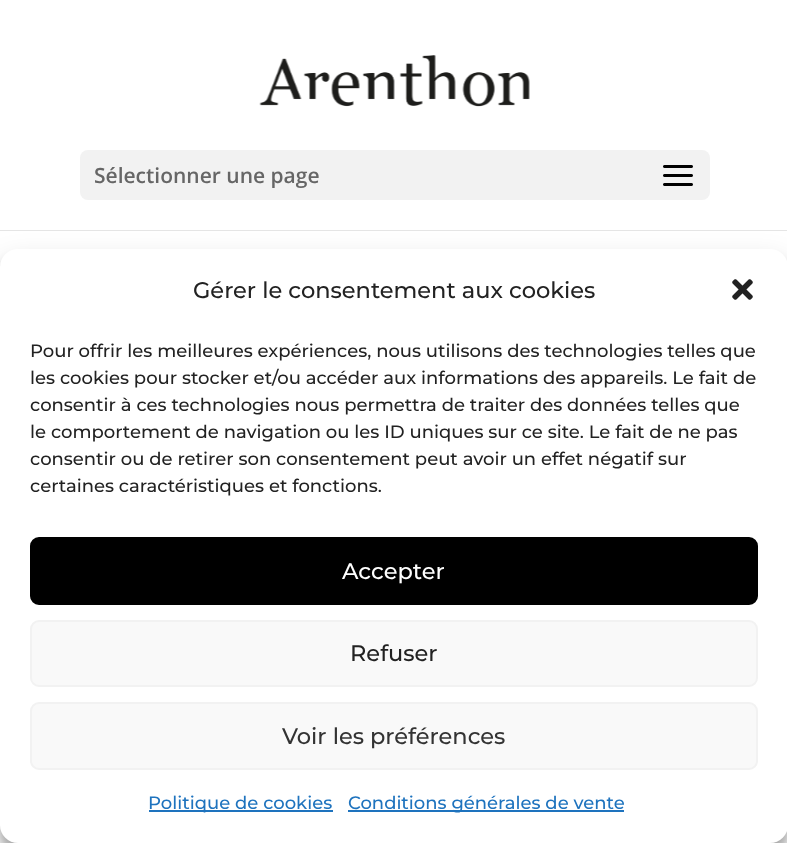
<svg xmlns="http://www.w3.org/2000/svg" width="787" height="843">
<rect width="100%" height="100%" fill="#fff"/>
<rect y="264" width="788" height="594" rx="18" fill="#00000030" filter="blur(15px)"/>
<path d="M0 230v1h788v-229v228z" fill="#e5e5e5"/>
<image x="259" y="55" width="271" height="52" href="media/1.png"/>
<rect x="80" y="150" width="630" height="50" rx="8" fill="#f2f2f2"/>
<text x="94" y="183" style="font-family:Open Sans;font-size:21px;font-weight:600;fill:#666">Sélectionner une page</text>
<image x="663" y="165" width="30" height="21" href="media/2.png"/>
<rect y="258" width="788" height="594" rx="18" fill="#0000003b" filter="blur(4.5px)"/>
<rect y="249" width="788" height="594" rx="18" fill="#fff"/>
<text x="193" y="298" style="font-family:Montserrat;font-size:22.5px;font-weight:100;fill:#222">Gérer le consentement aux cookies</text>
<image x="732" y="279" width="21" height="21" href="media/3.png"/>
<text x="30" y="357" style="font-family:Montserrat;font-size:18px;font-weight:100;fill:#222">Pour offrir les meilleures expériences, nous utilisons des technologies telles que</text>
<text x="30" y="384" style="font-family:Montserrat;font-size:18px;font-weight:100;fill:#222">les cookies pour stocker et/ou accéder aux informations des appareils. Le fait de</text>
<text x="30" y="411" style="font-family:Montserrat;font-size:18px;font-weight:100;fill:#222">consentir à ces technologies nous permettra de traiter des données telles que</text>
<text x="30" y="438" style="font-family:Montserrat;font-size:18px;font-weight:100;fill:#222">le comportement de navigation ou les ID uniques sur ce site. Le fait de ne pas</text>
<text x="30" y="465" style="font-family:Montserrat;font-size:18px;font-weight:100;fill:#222">consentir ou de retirer son consentement peut avoir un effet négatif sur</text>
<text x="30" y="492" style="font-family:Montserrat;font-size:18px;font-weight:100;fill:#222">certaines caractéristiques et fonctions.</text>
<rect x="31" y="538" width="726" height="66" rx="8" fill="#000" stroke="#000" stroke-width="2"/>
<text x="342" y="579" style="font-family:Montserrat;font-size:22.5px;font-weight:100;fill:#fff">Accepter</text>
<rect x="31" y="621" width="726" height="65" rx="8" fill="#f9f9f9" stroke="#f2f2f2" stroke-width="2"/>
<text x="350" y="661" style="font-family:Montserrat;font-size:22.5px;font-weight:100;fill:#222">Refuser</text>
<rect x="31" y="703" width="726" height="66" rx="8" fill="#f9f9f9" stroke="#f2f2f2" stroke-width="2"/>
<text x="282" y="744" style="font-family:Montserrat;font-size:22.5px;font-weight:100;fill:#333">Voir les préférences</text>
<rect x="149" y="810" width="184" height="2" fill="#1e73be"/>
<text x="148" y="809" style="font-family:Montserrat;font-size:18px;font-weight:100;fill:#1e73be">Politique de cookies</text>
<rect x="348" y="810" width="276" height="2" fill="#1e73be"/>
<text x="348" y="809" style="font-family:Montserrat;font-size:18px;font-weight:100;fill:#1e73be">Conditions générales de vente</text>
</svg>
